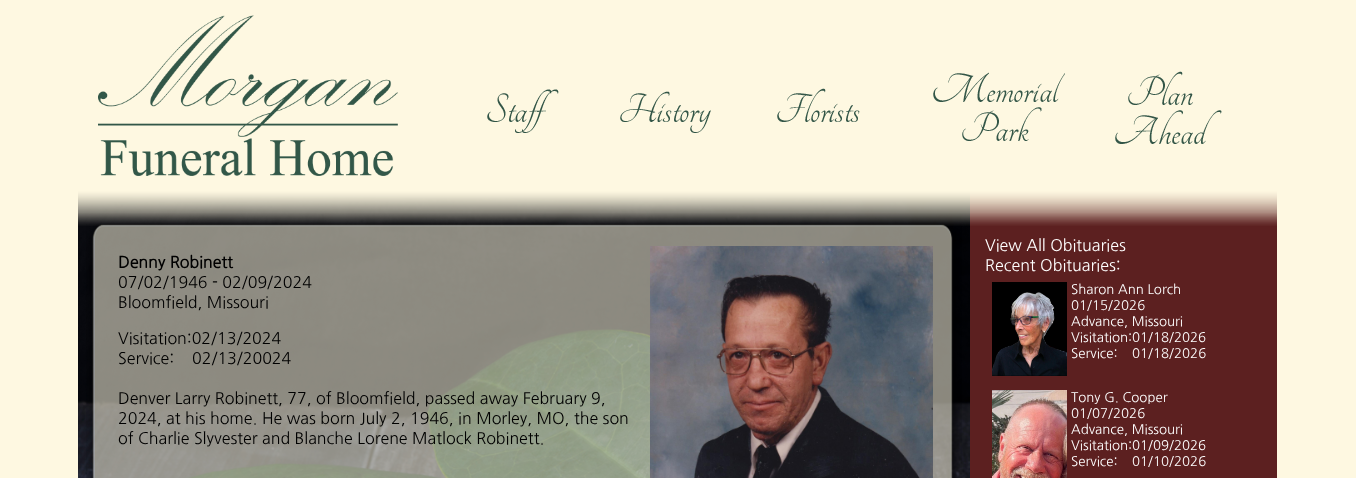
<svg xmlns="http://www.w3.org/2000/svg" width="1356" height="478">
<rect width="100%" height="100%" fill="#fef8e1"/>
<image x="78" y="191" width="892" height="287" href="media/8.png"/>
<image x="86" y="223" width="876" height="255" href="media/9.png"/>
<rect x="970" y="191" width="307" height="287" fill="#5c2020"/>
<image x="78" y="175" width="1199" height="51" href="media/1.png"/>
<image x="98" y="15" width="300" height="161" href="media/2.png"/>
<image x="487" y="89" width="72" height="44" href="media/3.png"/>
<image x="620" y="91" width="91" height="42" href="media/4.png"/>
<image x="777" y="88" width="83" height="34" href="media/5.png"/>
<image x="933" y="72" width="132" height="69" href="media/6.png"/>
<image x="1115" y="71" width="107" height="73" href="media/7.png"/>
<text x="118" y="268" style="font-family:NanumGothic;font-size:16px;font-weight:bold;fill:#000">Denny Robinett</text>
<text x="118" y="288" style="font-family:NanumGothic;font-size:16px;fill:#000">07/02/1946 - 02/09/2024</text>
<text x="118" y="308" style="font-family:NanumGothic;font-size:16px;fill:#000">Bloomfield, Missouri</text>
<image x="650" y="246" width="283" height="232" href="media/10.png"/>
<text x="118" y="344" style="font-family:NanumGothic;font-size:16px;fill:#000">Visitation:02/13/2024</text>
<text x="118" y="364" style="font-family:NanumGothic;font-size:16px;fill:#000">Service:</text>
<text x="192" y="364" style="font-family:NanumGothic;font-size:16px;fill:#000">02/13/20024</text>
<text x="118" y="404" style="font-family:NanumGothic;font-size:16px;fill:#000">Denver Larry Robinett, 77, of Bloomfield, passed away February 9,</text>
<text x="118" y="424" style="font-family:NanumGothic;font-size:16px;fill:#000">2024, at his home. He was born July 2, 1946, in Morley, MO, the son</text>
<text x="118" y="444" style="font-family:NanumGothic;font-size:16px;fill:#000">of Charlie Slyvester and Blanche Lorene Matlock Robinett.</text>
<text x="985" y="251" style="font-family:NanumGothic;font-size:16px;fill:#fff">View All Obituaries</text>
<text x="985" y="271" style="font-family:NanumGothic;font-size:16px;fill:#fff">Recent Obituaries:</text>
<image x="992" y="282" width="75" height="94" href="media/11.png"/>
<text x="1071" y="294" style="font-family:NanumGothic;font-size:13.25px;fill:#fff">Sharon Ann Lorch</text>
<text x="1071" y="310" style="font-family:NanumGothic;font-size:13.25px;fill:#fff">01/15/2026</text>
<text x="1071" y="326" style="font-family:NanumGothic;font-size:13.25px;fill:#fff">Advance, Missouri</text>
<text x="1071" y="342" style="font-family:NanumGothic;font-size:13.25px;fill:#fff">Visitation:01/18/2026</text>
<text x="1071" y="358" style="font-family:NanumGothic;font-size:13.25px;fill:#fff">Service:</text>
<text x="1132" y="358" style="font-family:NanumGothic;font-size:13.25px;fill:#fff">01/18/2026</text>
<image x="992" y="390" width="75" height="88" href="media/12.png"/>
<text x="1071" y="402" style="font-family:NanumGothic;font-size:13.25px;fill:#fff">Tony G. Cooper</text>
<text x="1071" y="418" style="font-family:NanumGothic;font-size:13.25px;fill:#fff">01/07/2026</text>
<text x="1071" y="434" style="font-family:NanumGothic;font-size:13.25px;fill:#fff">Advance, Missouri</text>
<text x="1071" y="450" style="font-family:NanumGothic;font-size:13.25px;fill:#fff">Visitation:01/09/2026</text>
<text x="1071" y="466" style="font-family:NanumGothic;font-size:13.25px;fill:#fff">Service:</text>
<text x="1132" y="466" style="font-family:NanumGothic;font-size:13.25px;fill:#fff">01/10/2026</text>
</svg>
